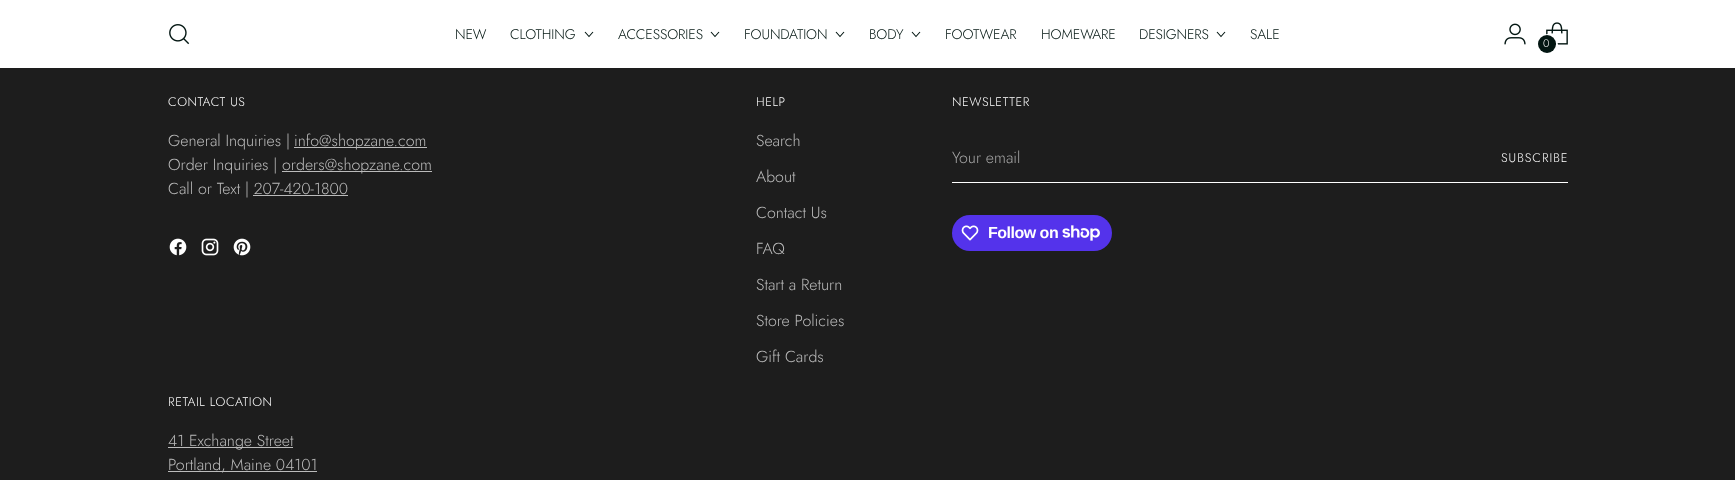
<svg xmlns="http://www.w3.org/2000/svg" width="1735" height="480">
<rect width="100%" height="100%" fill="#1d1d1d"/>
<rect width="1735" height="68" fill="#fff"/>
<image x="169" y="24" width="21" height="21" href="media/1.png"/>
<text x="455" y="39" style="font-family:Jost;font-size:14px;font-weight:300;letter-spacing:-0.1px;fill:#031612">NEW</text>
<text x="510" y="39" style="font-family:Jost;font-size:14px;font-weight:300;letter-spacing:-0.1px;fill:#031612">CLOTHING</text>
<path d="M585 32l4 4.5l4-4.5" fill="none" stroke="#031612" stroke-width="1.1"/>
<text x="618" y="39" style="font-family:Jost;font-size:14px;font-weight:300;letter-spacing:-0.1px;fill:#031612">ACCESSORIES</text>
<path d="M711 32l4 4.5l4-4.5" fill="none" stroke="#031612" stroke-width="1.1"/>
<text x="744" y="39" style="font-family:Jost;font-size:14px;font-weight:300;letter-spacing:-0.1px;fill:#031612">FOUNDATION</text>
<path d="M836 32l4 4.5l4-4.5" fill="none" stroke="#031612" stroke-width="1.1"/>
<text x="869" y="39" style="font-family:Jost;font-size:14px;font-weight:300;letter-spacing:-0.1px;fill:#031612">BODY</text>
<path d="M912 32l4 4.5l4-4.5" fill="none" stroke="#031612" stroke-width="1.1"/>
<text x="945" y="39" style="font-family:Jost;font-size:14px;font-weight:300;letter-spacing:-0.1px;fill:#031612">FOOTWEAR</text>
<text x="1041" y="39" style="font-family:Jost;font-size:14px;font-weight:300;letter-spacing:-0.1px;fill:#031612">HOMEWARE</text>
<text x="1139" y="39" style="font-family:Jost;font-size:14px;font-weight:300;letter-spacing:-0.1px;fill:#031612">DESIGNERS</text>
<path d="M1217 32l4 4.5l4-4.5" fill="none" stroke="#031612" stroke-width="1.1"/>
<text x="1250" y="39" style="font-family:Jost;font-size:14px;font-weight:300;letter-spacing:-0.1px;fill:#031612">SALE</text>
<image x="1504" y="23" width="22" height="22" href="media/2.png"/>
<image x="1546" y="22" width="22" height="23" href="media/3.png"/>
<circle cx="1547.5" cy="44.5" r="9.5" fill="none" stroke="#fff" stroke-width="2"/>
<circle cx="1547" cy="44" r="9" fill="#031612"/>
<text x="1543" y="47" style="font-family:Jost;font-size:11px;font-weight:300;fill:#fff">0</text>
<text x="168" y="106" style="font-family:Jost;font-size:12.5px;font-weight:300;letter-spacing:0.6px;fill:#fff">CONTACT US</text>
<text x="168" y="146" style="font-family:Jost;font-size:16px;font-weight:300;fill:#bbb">General Inquiries |</text>
<rect x="294" y="147" width="133" height="1" fill="#bbb"/>
<text x="294" y="146" style="font-family:Jost;font-size:16px;font-weight:300;fill:#bbb">info@shopzane.com</text>
<text x="168" y="170" style="font-family:Jost;font-size:16px;font-weight:300;fill:#bbb">Order Inquiries |</text>
<rect x="282" y="171" width="150" height="1" fill="#bbb"/>
<text x="282" y="170" style="font-family:Jost;font-size:16px;font-weight:300;fill:#bbb">orders@shopzane.com</text>
<text x="168" y="194" style="font-family:Jost;font-size:16px;font-weight:300;fill:#bbb">Call or Text | 207-420-1800</text>
<rect x="253" y="195" width="95" height="1" fill="#bbb"/>
<image x="169" y="238" width="18" height="18" href="media/4.png"/>
<image x="201" y="238" width="18" height="18" href="media/5.png"/>
<image x="233" y="238" width="18" height="18" href="media/6.png"/>
<text x="756" y="106" style="font-family:Jost;font-size:12.5px;font-weight:300;letter-spacing:0.6px;fill:#fff">HELP</text>
<text x="756" y="146" style="font-family:Jost;font-size:16px;font-weight:300;fill:#bbb">Search</text>
<text x="756" y="182" style="font-family:Jost;font-size:16px;font-weight:300;fill:#bbb">About</text>
<text x="756" y="218" style="font-family:Jost;font-size:16px;font-weight:300;fill:#bbb">Contact Us</text>
<text x="756" y="254" style="font-family:Jost;font-size:16px;font-weight:300;fill:#bbb">FAQ</text>
<text x="756" y="290" style="font-family:Jost;font-size:16px;font-weight:300;fill:#bbb">Start a Return</text>
<text x="756" y="326" style="font-family:Jost;font-size:16px;font-weight:300;fill:#bbb">Store Policies</text>
<text x="756" y="362" style="font-family:Jost;font-size:16px;font-weight:300;fill:#bbb">Gift Cards</text>
<text x="952" y="106" style="font-family:Jost;font-size:12.5px;font-weight:300;letter-spacing:0.6px;fill:#fff">NEWSLETTER</text>
<rect x="952" y="182" width="616" height="1" fill="#fff"/>
<text x="952" y="163" style="font-family:Jost;font-size:16px;font-weight:300;fill:#a5a5a5">Your email</text>
<text x="1501" y="162" style="font-family:Jost;font-size:12.5px;font-weight:300;letter-spacing:1px;fill:#fff">SUBSCRIBE</text>
<rect x="952" y="215" width="160" height="36" rx="18" fill="#5433eb"/>
<image x="961" y="225" width="18" height="16" href="media/7.png"/>
<text x="988" y="238" style="font-family:Liberation Sans;font-size:16px;font-weight:bold;letter-spacing:-0.5px;fill:#fff">Follow on</text>
<image x="1062" y="225" width="38" height="16" href="media/8.png"/>
<text x="168" y="406" style="font-family:Jost;font-size:12.5px;font-weight:300;letter-spacing:0.6px;fill:#fff">RETAIL LOCATION</text>
<rect x="168" y="447" width="125" height="1" fill="#bbb"/>
<text x="168" y="446" style="font-family:Jost;font-size:16px;font-weight:300;fill:#bbb">41 Exchange Street</text>
<rect x="168" y="471" width="149" height="1" fill="#bbb"/>
<text x="168" y="470" style="font-family:Jost;font-size:16px;font-weight:300;fill:#bbb">Portland, Maine 04101</text>
</svg>
